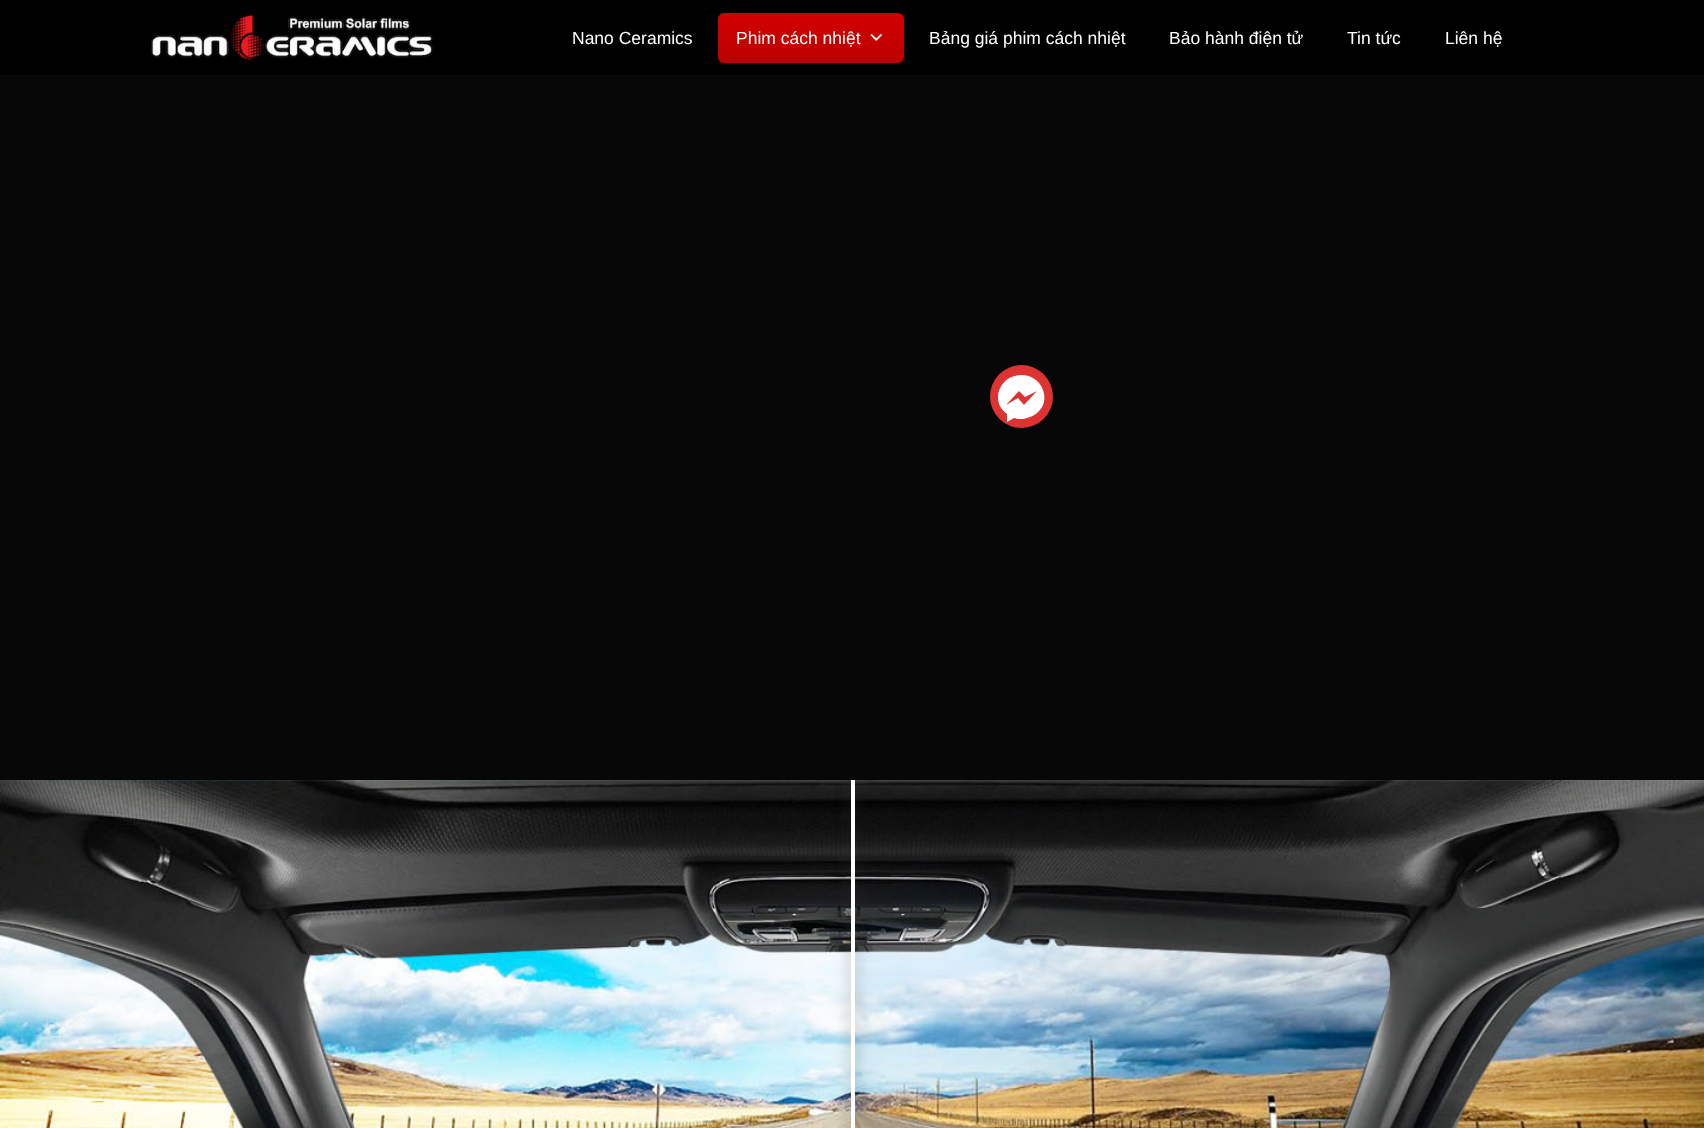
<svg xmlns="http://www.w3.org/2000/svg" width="1704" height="1128">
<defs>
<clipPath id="clip1"><rect x="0" y="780" width="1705" height="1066"/></clipPath>
<linearGradient id="g1" gradientUnits="userSpaceOnUse" x1="811" y1="12" x2="811" y2="63"><stop offset="0" stop-color="#d20000"/><stop offset="1" stop-color="#bd0000"/></linearGradient>
</defs>
<rect width="100%" height="100%" fill="#070707"/>
<image x="0" y="780" width="851" height="348" href="media/1.png"/>
<image x="855" y="780" width="849" height="348" href="media/2.png"/>
<g clip-path="url(#clip1)">
<rect x="851" y="-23" width="4" height="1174" fill="#33333380" filter="blur(7.5px)"/>
</g>
<rect x="851" y="780" width="4" height="348" fill="#fff"/>
<rect width="1704" height="75" fill="#000"/>
<image x="151" y="13" width="283" height="49" href="media/3.png"/>
<text x="572" y="44" style="font-family:Liberation Sans;font-size:17.5px;fill:#fff">Nano Ceramics</text>
<rect x="718" y="13" width="186" height="50" rx="6" fill="url(#g1)"/>
<text x="736" y="44" style="font-family:Liberation Sans;font-size:17.5px;fill:#fff">Phim cách nhiệt</text>
<image x="870" y="34" width="13" height="7" href="media/4.png"/>
<text x="929" y="44" style="font-family:Liberation Sans;font-size:17.5px;fill:#fff">Bảng giá phim cách nhiệt</text>
<text x="1169" y="44" style="font-family:Liberation Sans;font-size:17.5px;fill:#fff">Bảo hành điện tử</text>
<text x="1347" y="44" style="font-family:Liberation Sans;font-size:17.5px;fill:#fff">Tin tức</text>
<text x="1445" y="44" style="font-family:Liberation Sans;font-size:17.5px;fill:#fff">Liên hệ</text>
<circle cx="1021.5" cy="396.5" r="31.5" fill="#d33"/>
<path d="M1021 375c-21 0-32 26-14 39v8l7-4c6 2 11 1 16-1c24-9 16-42-9-42zm3 30l-6-7l-12 7l13-14l6 6l12-6z" fill="#fff"/>
</svg>
